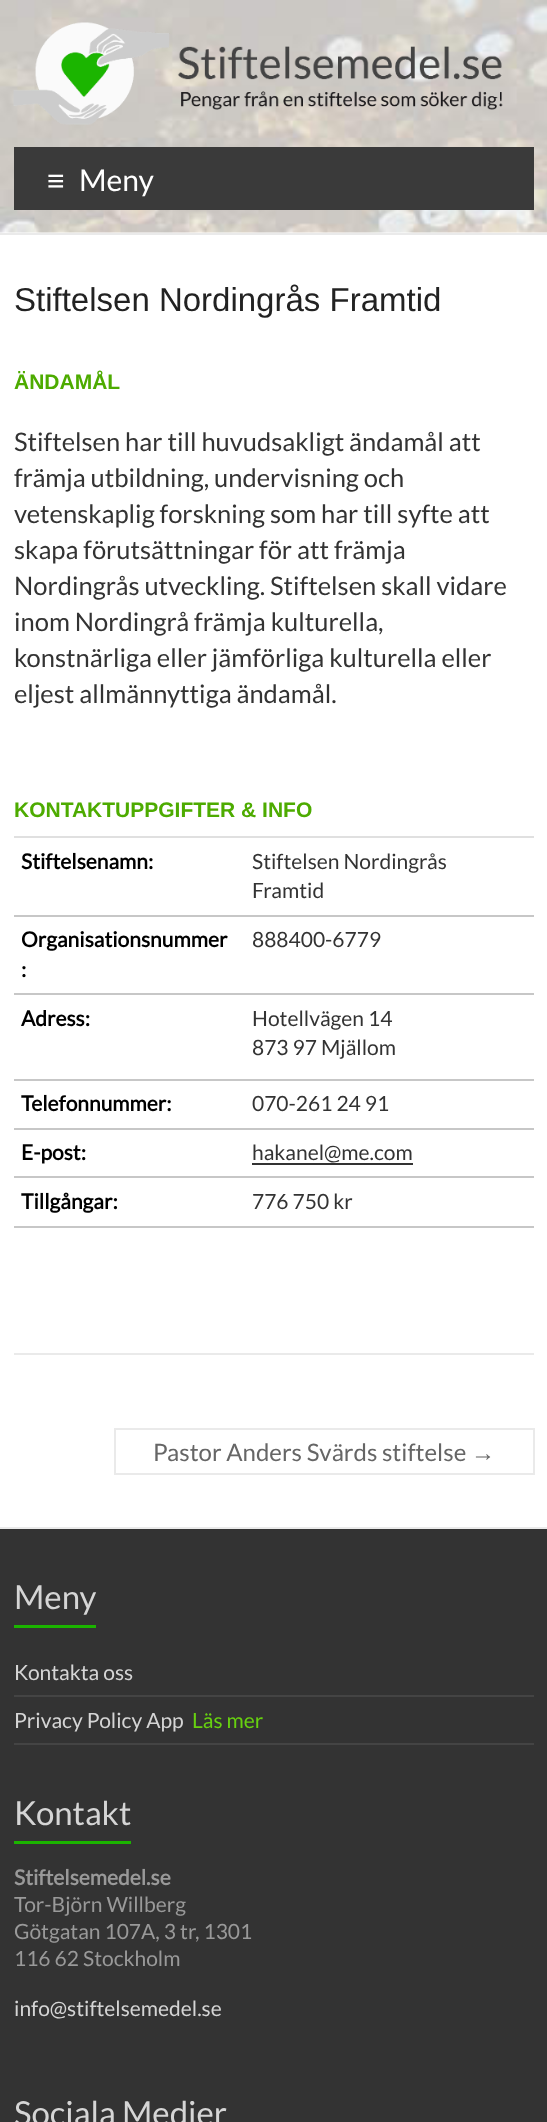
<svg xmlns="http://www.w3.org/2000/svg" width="547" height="2122">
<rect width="100%" height="100%" fill="#fff"/>
<image x="0" y="0" width="547" height="233" href="media/1.png"/>
<rect y="233" width="547" height="2" fill="#eaeaea"/>
<image x="13" y="22" width="490" height="103" href="media/2.png"/>
<rect x="14" y="147" width="520" height="63" fill="#3a3a3a"/>
<text x="47" y="191" style="font-family:Liberation Sans;font-size:30px;fill:#fff">≡</text>
<text x="79" y="191" style="font-family:Lato;font-size:30px;fill:#fff">Meny</text>
<text x="14" y="311" style="font-family:Liberation Sans;font-size:33px;fill:#222">Stiftelsen Nordingrås Framtid</text>
<text x="14" y="389" style="font-family:Liberation Sans;font-size:21px;font-weight:bold;fill:#4dab00">ÄNDAMÅL</text>
<text x="14" y="451" style="font-family:Lato;font-size:25.5px;fill:#333">Stiftelsen har till huvudsakligt ändamål att</text>
<text x="14" y="487" style="font-family:Lato;font-size:25.5px;fill:#333">främja utbildning, undervisning och</text>
<text x="14" y="523" style="font-family:Lato;font-size:25.5px;fill:#333">vetenskaplig forskning som har till syfte att</text>
<text x="14" y="559" style="font-family:Lato;font-size:25.5px;fill:#333">skapa förutsättningar för att främja</text>
<text x="14" y="595" style="font-family:Lato;font-size:25.5px;fill:#333">Nordingrås utveckling. Stiftelsen skall vidare</text>
<text x="14" y="631" style="font-family:Lato;font-size:25.5px;fill:#333">inom Nordingrå främja kulturella,</text>
<text x="14" y="667" style="font-family:Lato;font-size:25.5px;fill:#333">konstnärliga eller jämförliga kulturella eller</text>
<text x="14" y="703" style="font-family:Lato;font-size:25.5px;fill:#333">eljest allmännyttiga ändamål.</text>
<rect x="14" y="836" width="520" height="2" fill="#e0e0e0"/>
<text x="14" y="817" style="font-family:Liberation Sans;font-size:21px;font-weight:bold;fill:#4dab00">KONTAKTUPPGIFTER &amp; INFO</text>
<rect x="14" y="915" width="520" height="2" fill="#c7c7c7"/>
<text x="21" y="869" style="font-family:Lato;font-size:21px;font-weight:bold;fill:#000">Stiftelsenamn:</text>
<text x="252" y="869" style="font-family:Lato;font-size:21px;fill:#333">Stiftelsen Nordingrås</text>
<text x="252" y="898" style="font-family:Lato;font-size:21px;fill:#333">Framtid</text>
<rect x="14" y="993" width="520" height="2" fill="#c7c7c7"/>
<text x="21" y="947" style="font-family:Lato;font-size:21px;font-weight:bold;fill:#000">Organisationsnummer</text>
<text x="21" y="977" style="font-family:Lato;font-size:21px;font-weight:bold;fill:#000">:</text>
<text x="252" y="947" style="font-family:Lato;font-size:21px;fill:#333">888400-6779</text>
<rect x="14" y="1079" width="520" height="2" fill="#c7c7c7"/>
<text x="21" y="1026" style="font-family:Lato;font-size:21px;font-weight:bold;fill:#000">Adress:</text>
<text x="252" y="1026" style="font-family:Lato;font-size:21px;fill:#333">Hotellvägen 14</text>
<text x="252" y="1055" style="font-family:Lato;font-size:21px;fill:#333">873 97 Mjällom</text>
<rect x="14" y="1128" width="520" height="2" fill="#c7c7c7"/>
<text x="21" y="1111" style="font-family:Lato;font-size:21px;font-weight:bold;fill:#000">Telefonnummer:</text>
<text x="252" y="1111" style="font-family:Lato;font-size:21px;fill:#333">070-261 24 91</text>
<rect x="14" y="1176" width="520" height="2" fill="#c7c7c7"/>
<text x="21" y="1160" style="font-family:Lato;font-size:21px;font-weight:bold;fill:#000">E-post:</text>
<text x="252" y="1160" style="font-family:Lato;font-size:21px;fill:#333">hakanel@me.com</text>
<rect x="252" y="1163" width="161" height="2" fill="#333"/>
<rect x="14" y="1226" width="520" height="2" fill="#c7c7c7"/>
<text x="21" y="1209" style="font-family:Lato;font-size:21px;font-weight:bold;fill:#000">Tillgångar:</text>
<text x="252" y="1209" style="font-family:Lato;font-size:21px;fill:#333">776 750 kr</text>
<rect x="14" y="1353" width="520" height="2" fill="#eaeaea"/>
<text x="153" y="1461" style="font-family:Lato;font-size:24px;fill:#666">Pastor Anders Svärds stiftelse</text>
<rect x="114" y="1428" width="420" height="2" fill="#eaeaea"/>
<rect x="114" y="1473" width="357" height="2" fill="#eaeaea"/>
<rect x="114" y="1428" width="2" height="47" fill="#eaeaea"/>
<text x="471" y="1461" style="font-family:Liberation Sans;font-size:24px;fill:#666">→</text>
<rect x="533" y="1428" width="2" height="47" fill="#eaeaea"/>
<rect x="471" y="1473" width="63" height="2" fill="#eaeaea"/>
<rect y="1529" width="547" height="593" fill="#333"/>
<rect y="1527" width="547" height="2" fill="#eaeaea"/>
<text x="14" y="1609" style="font-family:Lato;font-size:33px;fill:#d5d5d5">Meny</text>
<rect x="14" y="1625" width="82" height="3" fill="#1bb500"/>
<rect x="14" y="1695" width="520" height="2" fill="#444"/>
<text x="14" y="1680" style="font-family:Lato;font-size:21px;fill:#d5d5d5">Kontakta oss</text>
<rect x="14" y="1743" width="520" height="2" fill="#444"/>
<text x="14" y="1728" style="font-family:Lato;font-size:21px;fill:#d5d5d5">Privacy Policy App</text>
<text x="192" y="1728" style="font-family:Lato;font-size:21px;fill:#67d110">Läs mer</text>
<text x="14" y="1825" style="font-family:Lato;font-size:33px;fill:#d5d5d5">Kontakt</text>
<rect x="14" y="1841" width="117" height="3" fill="#1bb500"/>
<text x="14" y="1885" style="font-family:Lato;font-size:21px;font-weight:bold;fill:#999">Stiftelsemedel.se</text>
<text x="14" y="1912" style="font-family:Lato;font-size:21px;fill:#999">Tor-Björn Willberg</text>
<text x="14" y="1939" style="font-family:Lato;font-size:21px;fill:#999">Götgatan 107A, 3 tr, 1301</text>
<text x="14" y="1966" style="font-family:Lato;font-size:21px;fill:#999">116 62 Stockholm</text>
<text x="14" y="2016" style="font-family:Lato;font-size:21px;fill:#d5d5d5">info@stiftelsemedel.se</text>
<text x="14" y="2125" style="font-family:Lato;font-size:33px;fill:#d5d5d5">Sociala Medier</text>
</svg>
